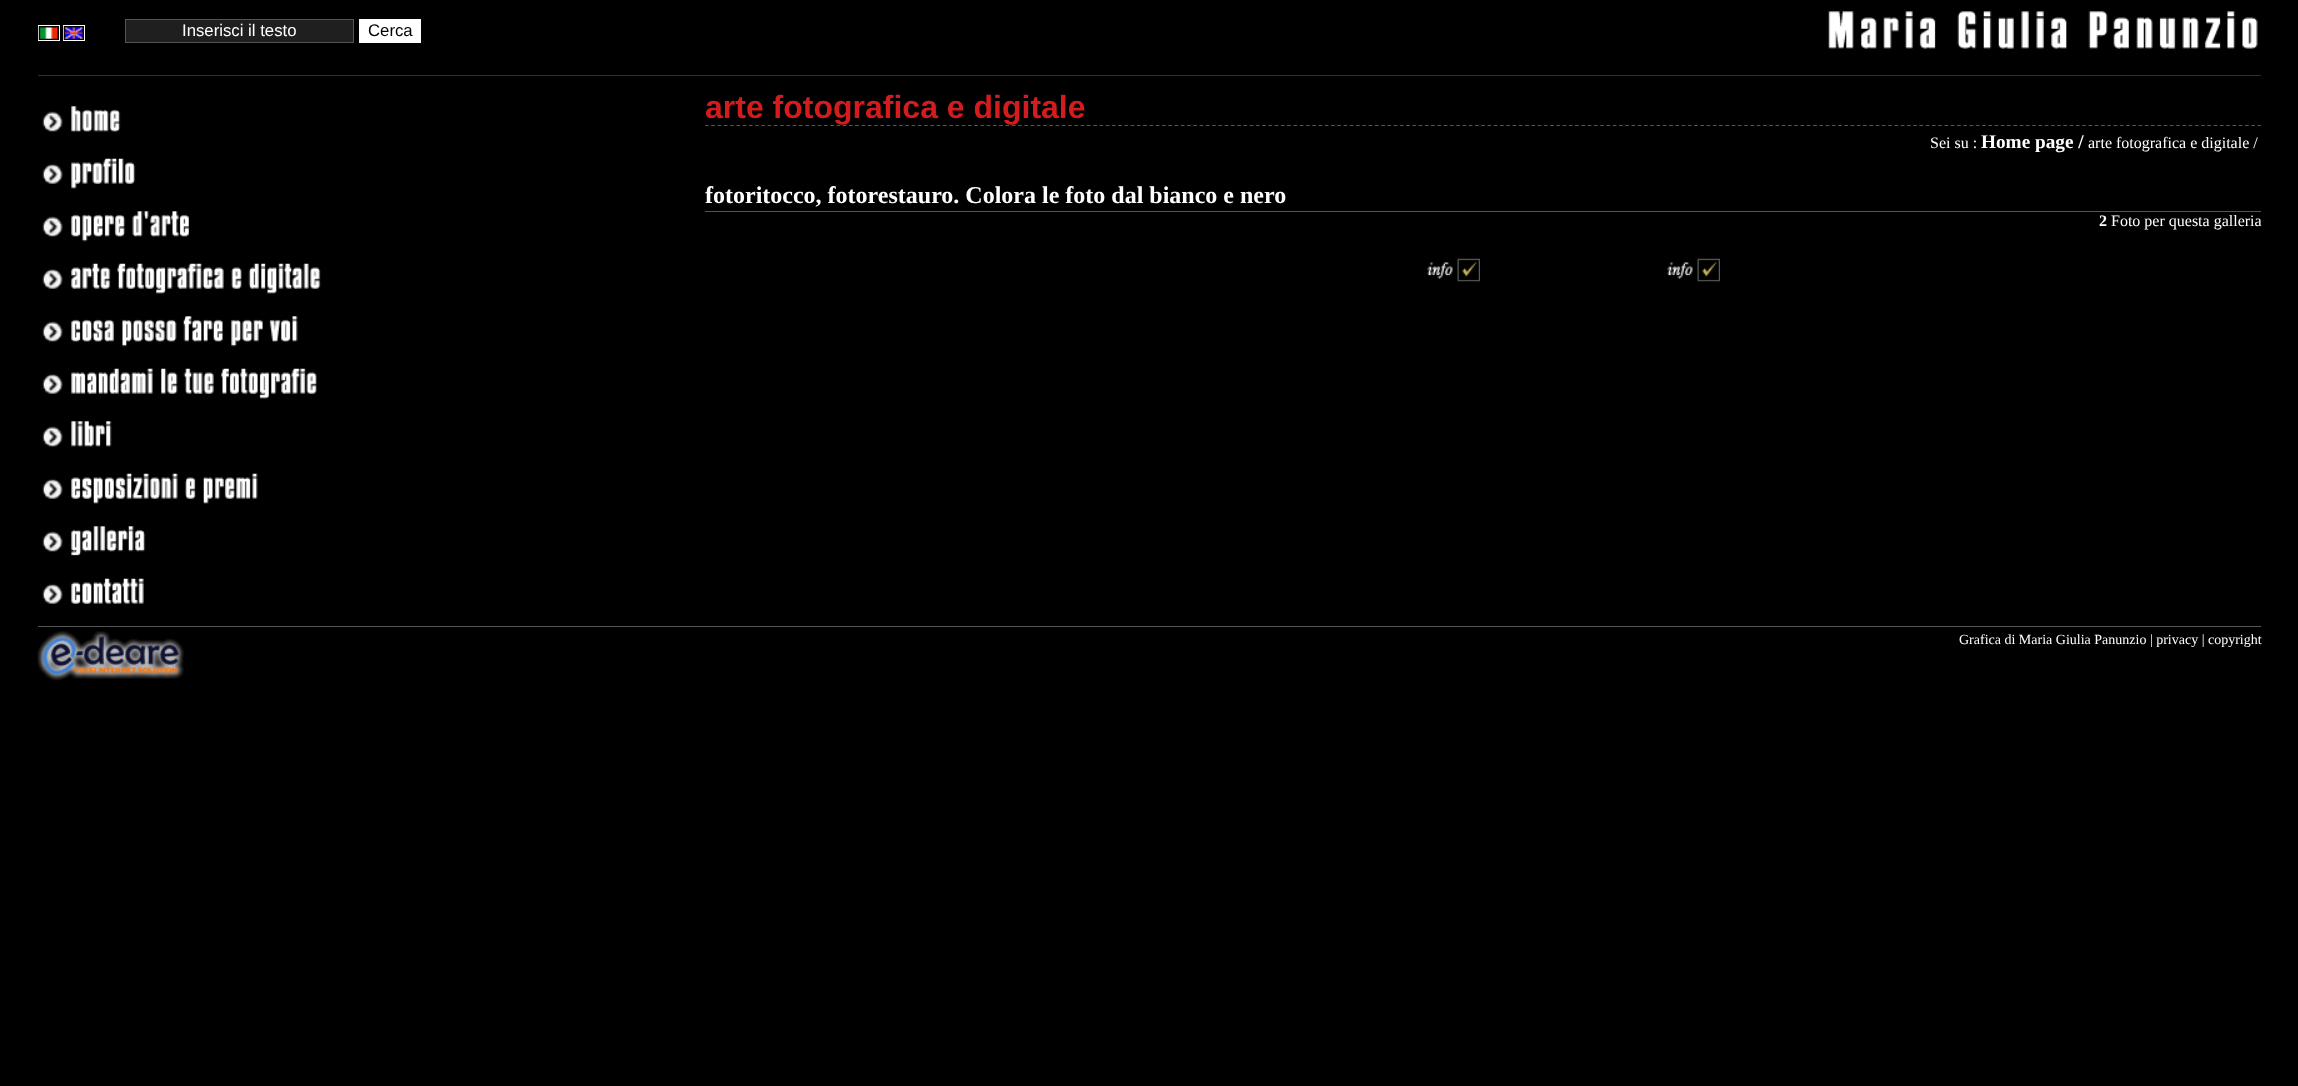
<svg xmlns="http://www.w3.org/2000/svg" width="2298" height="1086">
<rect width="100%" height="100%" fill="#000"/>
<rect x="38" y="75" width="2223" height="1" fill="#2f2f2f"/>
<image x="1828" y="11" width="430" height="38" href="media/1.png"/>
<rect x="38.5" y="25.5" width="21" height="15" fill="none" stroke="#fff"/>
<image x="38" y="26" width="21" height="14" href="media/2.png"/>
<rect x="63.5" y="25.5" width="21" height="15" fill="none" stroke="#fff"/>
<image x="63" y="26" width="21" height="14" href="media/3.png"/>
<rect x="125.5" y="19.5" width="228" height="23" fill="#1f1f1f" stroke="#555"/>
<text x="182" y="36" style="font-family:Liberation Sans;font-size:16.75px;fill:#fff">Inserisci il testo</text>
<rect x="359" y="19" width="62" height="24" fill="#fff"/>
<text x="368" y="36" style="font-family:Liberation Sans;font-size:16.75px;fill:#000">Cerca</text>
<image x="42" y="106" width="79" height="26" href="media/4.png"/>
<image x="42" y="158" width="94" height="31" href="media/5.png"/>
<image x="42" y="211" width="147" height="31" href="media/6.png"/>
<image x="42" y="263" width="279" height="31" href="media/7.png"/>
<image x="42" y="316" width="256" height="31" href="media/8.png"/>
<image x="42" y="368" width="275" height="31" href="media/9.png"/>
<image x="42" y="421" width="70" height="26" href="media/10.png"/>
<image x="42" y="473" width="216" height="31" href="media/11.png"/>
<image x="42" y="526" width="104" height="30" href="media/12.png"/>
<image x="42" y="578" width="102" height="26" href="media/13.png"/>
<path d="M705 125.5h1556" fill="none" stroke="#555" stroke-width="1.2" stroke-dasharray="3.75 2.51"/>
<text x="705" y="118" style="font-family:Liberation Sans;font-size:32px;font-weight:bold;fill:#d41c1c">arte fotografica e digitale</text>
<text x="1930" y="148" style="font-family:Liberation Serif;font-size:16px;fill:#fff">Sei su :</text>
<text x="1981" y="148" style="font-family:Liberation Serif;font-size:19.25px;font-weight:bold;fill:#fff">Home page /</text>
<text x="2088" y="148" style="font-family:Liberation Serif;font-size:16px;fill:#fff">arte fotografica e digitale /</text>
<text x="705" y="203" style="font-family:Liberation Serif;font-size:24px;font-weight:bold;fill:#fff">fotoritocco, fotorestauro. Colora le foto dal bianco e nero</text>
<rect x="705" y="211" width="1556" height="1" fill="#555"/>
<text x="2099" y="226" style="font-family:Liberation Serif;font-size:16px;font-weight:bold;fill:#fff">2</text>
<text x="2111" y="226" style="font-family:Liberation Serif;font-size:16px;fill:#fff">Foto per questa galleria</text>
<image x="1427" y="258" width="53" height="24" href="media/14.png"/>
<image x="1667" y="258" width="53" height="24" href="media/14.png"/>
<rect x="38" y="626" width="2223" height="1" fill="#555"/>
<image x="37" y="631" width="147" height="49" href="media/15.png"/>
<text x="1959" y="644" style="font-family:Liberation Serif;font-size:14px;fill:#fff">Grafica di Maria Giulia Panunzio | privacy | copyright</text>
</svg>
